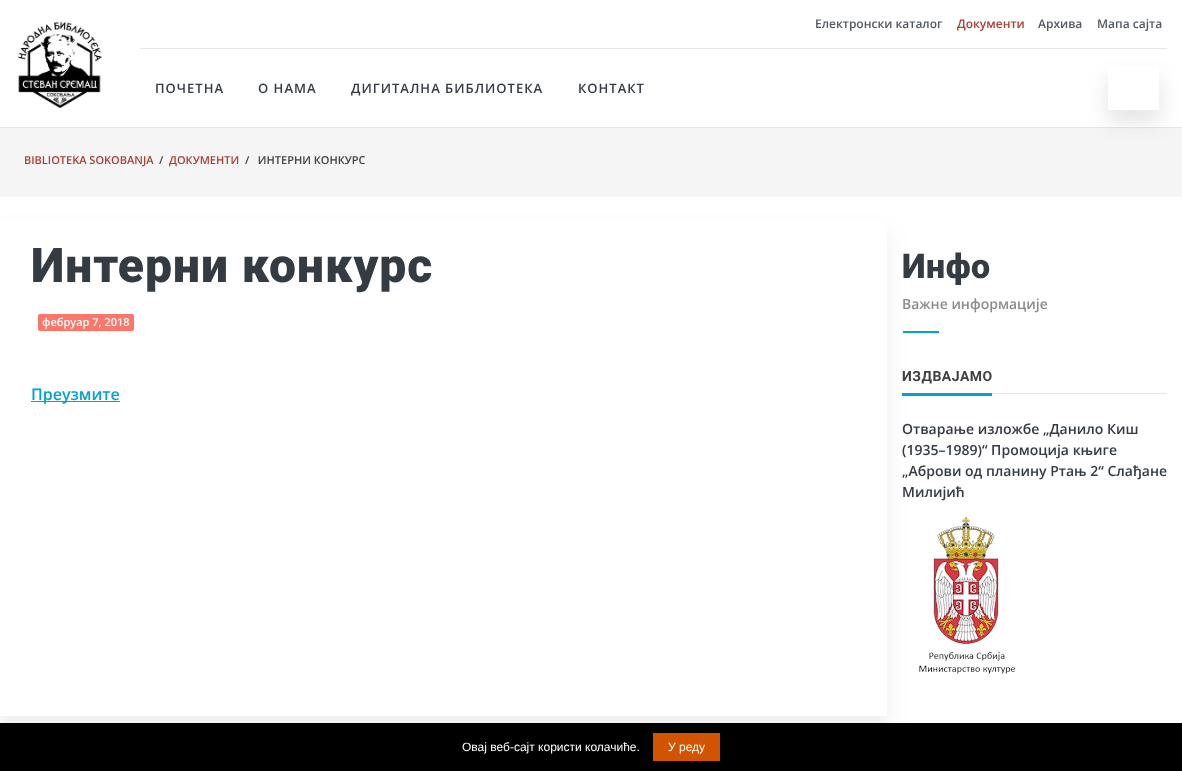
<svg xmlns="http://www.w3.org/2000/svg" width="1182" height="771">
<defs>
<clipPath id="clip1"><path d="M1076 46h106v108h-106zm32 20h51v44h-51z" clip-rule="evenodd"/></clipPath>
<clipPath id="clip2"><path d="M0 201h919v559h-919zm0 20h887v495h-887z" clip-rule="evenodd"/></clipPath>
</defs>
<rect width="100%" height="100%" fill="#fff"/>
<rect y="127" width="1182" height="1" fill="#e7e7e7"/>
<image x="17" y="21" width="85" height="87" href="media/1.png"/>
<rect x="140" y="48" width="1027" height="1" fill="#e7e7e7"/>
<text x="815" y="28" style="font-family:Open Sans;font-size:12px;font-weight:600;fill:#52585f">Електронски каталог</text>
<text x="957" y="28" style="font-family:Open Sans;font-size:12px;font-weight:600;fill:#a93f35">Документи</text>
<text x="1038" y="28" style="font-family:Open Sans;font-size:12px;font-weight:600;fill:#52585f">Архива</text>
<text x="1097" y="28" style="font-family:Open Sans;font-size:12px;font-weight:600;fill:#52585f">Мапа сајта</text>
<text x="155" y="93" style="font-family:Open Sans;font-size:13px;font-weight:600;letter-spacing:1px;fill:#343b43">ПОЧЕТНА</text>
<text x="258" y="93" style="font-family:Open Sans;font-size:13px;font-weight:600;letter-spacing:1px;fill:#343b43">О НАМА</text>
<text x="351" y="93" style="font-family:Open Sans;font-size:13px;font-weight:600;letter-spacing:1px;fill:#343b43">ДИГИТАЛНА БИБЛИОТЕКА</text>
<text x="578" y="93" style="font-family:Open Sans;font-size:13px;font-weight:600;letter-spacing:1px;fill:#343b43">КОНТАКТ</text>
<rect y="128" width="1182" height="69" fill="#f5f5f5"/>
<g clip-path="url(#clip1)">
<rect x="1107" y="77" width="53" height="46" fill="#40404021" filter="blur(10px)"/>
</g>
<text x="24" y="164" style="font-family:Open Sans;font-size:11px;font-weight:600;fill:#a93f35">BIBLIOTEKA SOKOBANJA</text>
<text x="159" y="164" style="font-family:Open Sans;font-size:11px;font-weight:600;fill:#404040">/</text>
<text x="169" y="164" style="font-family:Open Sans;font-size:11px;font-weight:600;fill:#a93f35">ДОКУМЕНТИ</text>
<text x="245" y="164" style="font-family:Open Sans;font-size:11px;font-weight:600;fill:#404040" xml:space="preserve">/   ИНТЕРНИ КОНКУРС</text>
<g clip-path="url(#clip2)">
<rect x="-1" y="232" width="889" height="497" fill="#40404017" filter="blur(10px)"/>
</g>
<text x="31" y="282" style="font-family:Roboto;font-size:48px;font-weight:900;letter-spacing:1px;fill:#343b43">Интерни конкурс</text>
<rect x="38" y="314" width="96" height="17" rx="2" fill="#fc776a"/>
<text x="42" y="326" style="font-family:Open Sans;font-size:11px;font-weight:600;fill:#fff">фебруар 7, 2018</text>
<rect x="31" y="401" width="89" height="1" fill="#00a4cc"/>
<text x="31" y="400" style="font-family:Open Sans;font-size:16px;font-weight:600;fill:#00a4cc">Преузмите</text>
<text x="902" y="278" style="font-family:Roboto;font-size:34px;font-weight:900;letter-spacing:0.5px;fill:#343b43">Инфо</text>
<text x="902" y="309" style="font-family:Open Sans;font-size:14px;font-weight:600;fill:#8c8c8c">Важне информације</text>
<rect x="903" y="331" width="36" height="2" fill="#00a4cc"/>
<rect x="992" y="393" width="175" height="1" fill="#e7e7e7"/>
<text x="902" y="381" style="font-family:Roboto;font-size:14px;font-weight:bold;letter-spacing:0.5px;fill:#404040">ИЗДВАЈАМО</text>
<rect x="902" y="393" width="90" height="3" fill="#00a4cc"/>
<text x="902" y="434" style="font-family:Open Sans;font-size:14px;font-weight:600;fill:#343b43">Отварање изложбе „Данило Киш</text>
<text x="902" y="455" style="font-family:Open Sans;font-size:14px;font-weight:600;fill:#343b43">(1935–1989)“ Промоција књиге</text>
<text x="902" y="476" style="font-family:Open Sans;font-size:14px;font-weight:600;fill:#343b43">„Аброви од планину Ртањ 2“ Слађане</text>
<text x="902" y="497" style="font-family:Open Sans;font-size:14px;font-weight:600;fill:#343b43">Милијић</text>
<image x="919" y="517" width="97" height="157" href="media/2.png"/>
<rect y="723" width="1182" height="48" fill="#000"/>
<text x="462" y="751" style="font-family:Liberation Sans;font-size:12px;fill:#fff">Овај веб-сајт користи колачиће.</text>
<rect x="653" y="733" width="67" height="28" fill="#d35400"/>
<text x="668" y="751" style="font-family:Liberation Sans;font-size:12px;fill:#fff">У реду</text>
</svg>
